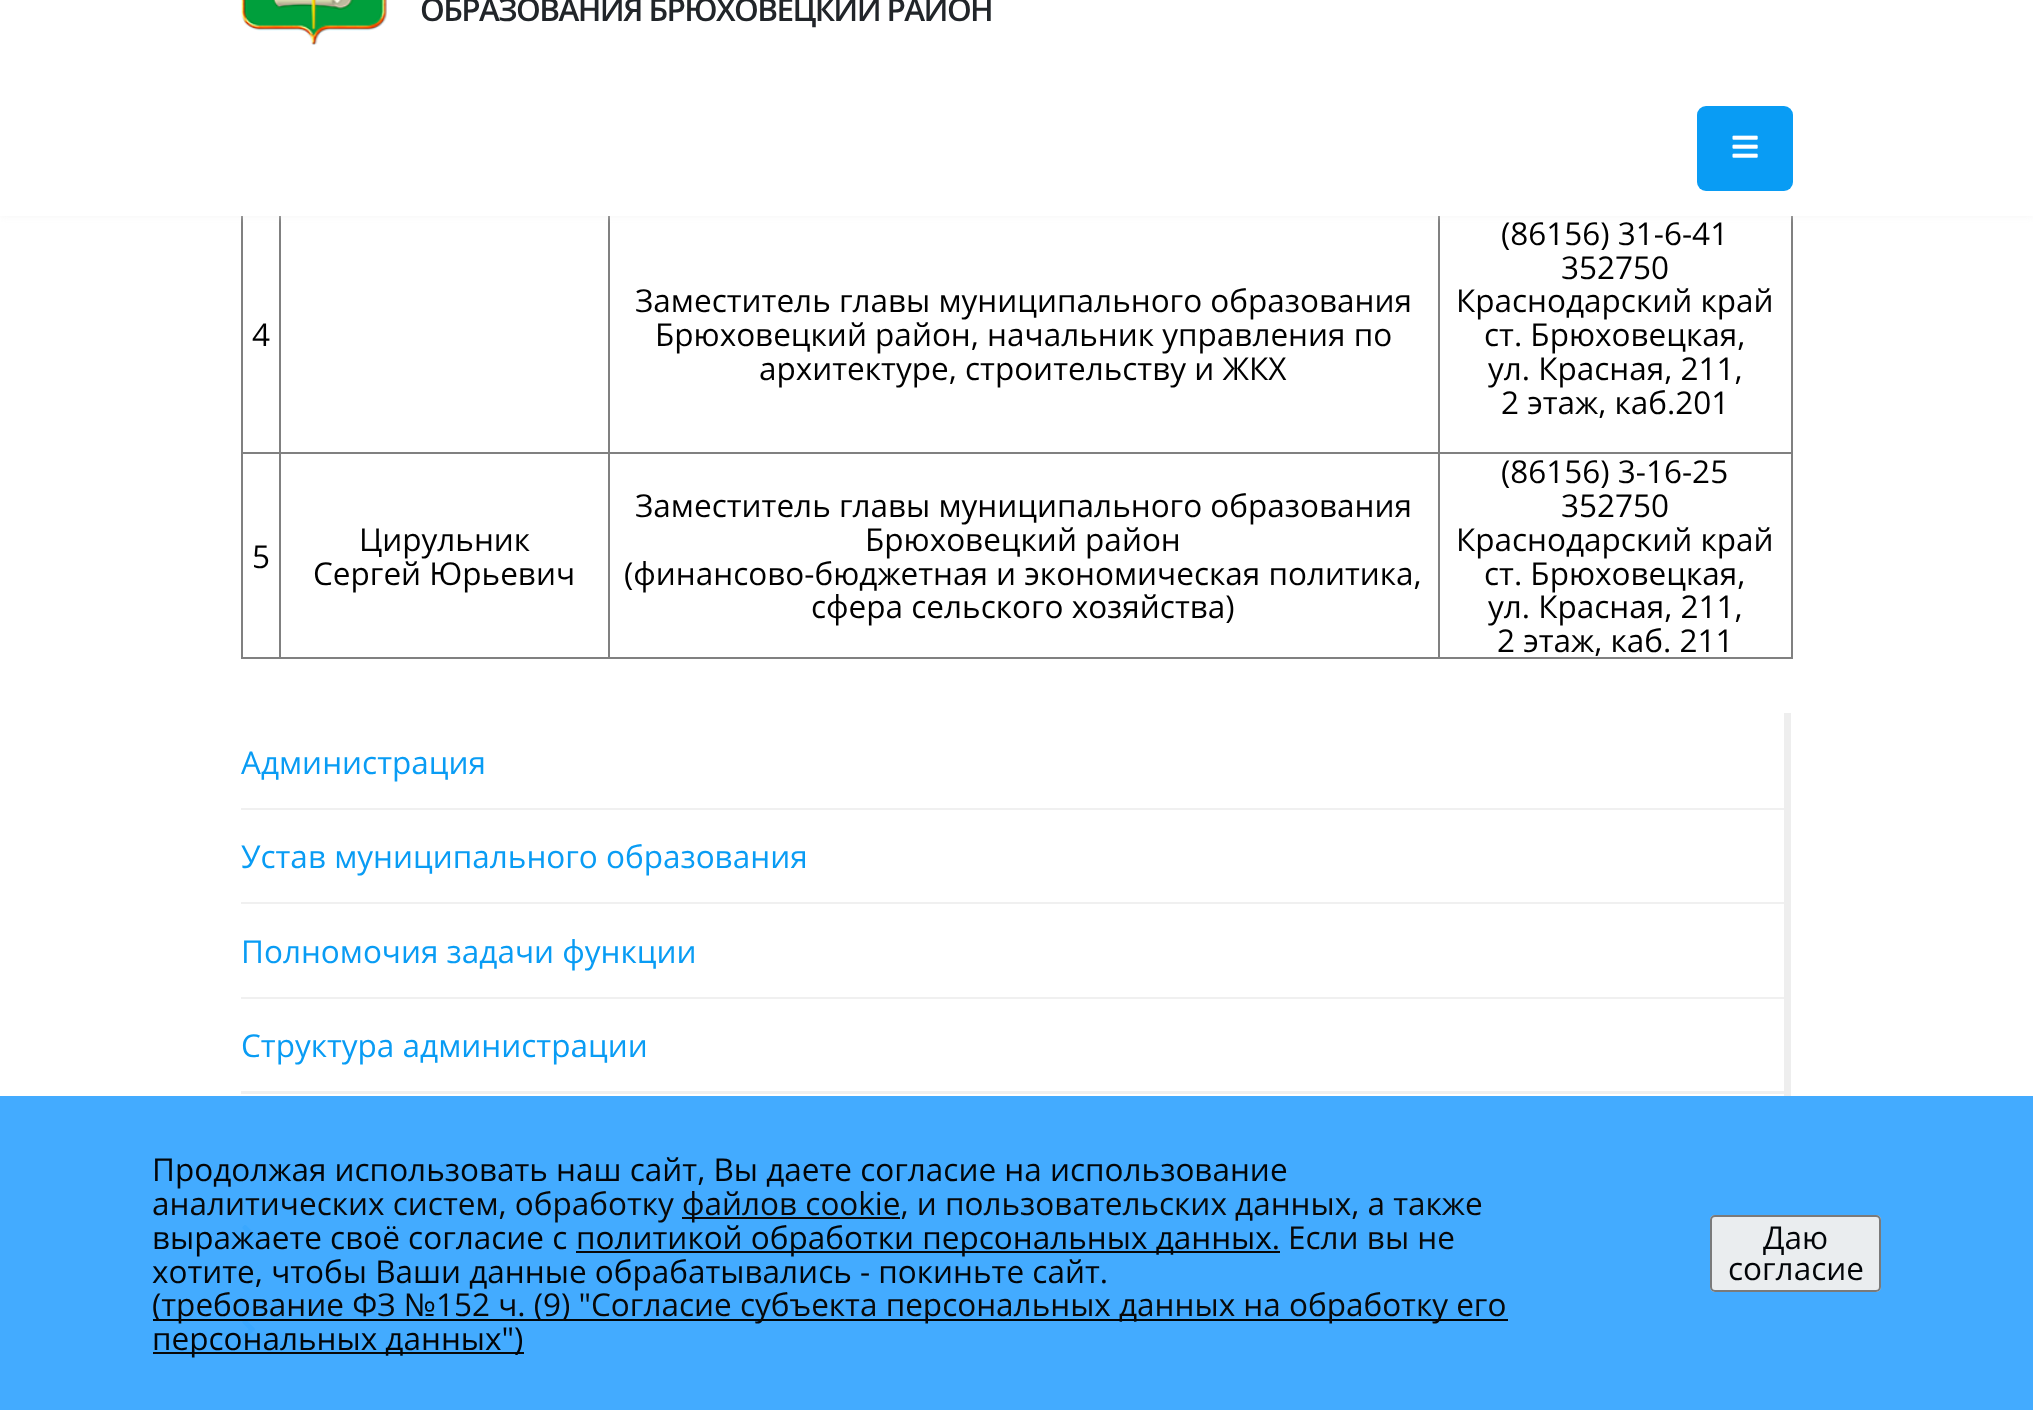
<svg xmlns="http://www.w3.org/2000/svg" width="2033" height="1410">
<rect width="100%" height="100%" fill="#fff"/>
<rect x="1791" y="216" width="2" height="443" fill="#808080"/>
<rect x="241" y="657" width="1552" height="2" fill="#808080"/>
<rect x="241" y="216" width="2" height="443" fill="#808080"/>
<rect x="1438" y="452" width="355" height="2" fill="#808080"/>
<rect x="1438" y="452" width="2" height="207" fill="#808080"/>
<rect x="608" y="452" width="832" height="2" fill="#808080"/>
<rect x="608" y="452" width="2" height="207" fill="#808080"/>
<rect x="279" y="452" width="331" height="2" fill="#808080"/>
<rect x="279" y="452" width="2" height="207" fill="#808080"/>
<rect x="241" y="452" width="40" height="2" fill="#808080"/>
<rect x="279" y="214" width="2" height="241" fill="#808080"/>
<rect x="608" y="214" width="2" height="241" fill="#808080"/>
<rect x="1438" y="214" width="2" height="241" fill="#808080"/>
<rect y="-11" width="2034" height="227" fill="#eaeaea80" filter="blur(3.5px)"/>
<rect width="2033" height="216" fill="#fff"/>
<image x="241" y="0" width="146" height="45" href="media/1.png"/>
<text x="420" y="21" style="font-family:Open Sans;font-size:31.5px;font-weight:600;letter-spacing:-1.6px;fill:#212529">ОБРАЗОВАНИЯ БРЮХОВЕЦКИЙ РАЙОН</text>
<rect x="1697" y="106" width="96" height="85" rx="9" fill="#099cf4"/>
<image x="1732" y="135" width="26" height="23" href="media/2.png"/>
<text x="252" y="346" style="font-family:Open Sans;font-size:31.5px;fill:#000">4</text>
<text x="635" y="312" style="font-family:Open Sans;font-size:31.5px;fill:#000">Заместитель главы муниципального образования</text>
<text x="655" y="346" style="font-family:Open Sans;font-size:31.5px;fill:#000">Брюховецкий район, начальник управления по</text>
<text x="759" y="380" style="font-family:Open Sans;font-size:31.5px;fill:#000">архитектуре, строительству и ЖКХ</text>
<text x="1501" y="245" style="font-family:Open Sans;font-size:31.5px;fill:#000">(86156) 31-6-41</text>
<text x="1561" y="279" style="font-family:Open Sans;font-size:31.5px;fill:#000">352750</text>
<text x="1456" y="312" style="font-family:Open Sans;font-size:31.5px;fill:#000">Краснодарский край</text>
<text x="1484" y="346" style="font-family:Open Sans;font-size:31.5px;fill:#000">ст. Брюховецкая,</text>
<text x="1488" y="380" style="font-family:Open Sans;font-size:31.5px;fill:#000">ул. Красная, 211,</text>
<text x="1501" y="414" style="font-family:Open Sans;font-size:31.5px;fill:#000">2 этаж, каб.201</text>
<text x="252" y="568" style="font-family:Open Sans;font-size:31.5px;fill:#000">5</text>
<text x="359" y="551" style="font-family:Open Sans;font-size:31.5px;fill:#000">Цирульник</text>
<text x="313" y="585" style="font-family:Open Sans;font-size:31.5px;fill:#000">Сергей Юрьевич</text>
<text x="635" y="517" style="font-family:Open Sans;font-size:31.5px;fill:#000">Заместитель главы муниципального образования</text>
<text x="865" y="551" style="font-family:Open Sans;font-size:31.5px;fill:#000">Брюховецкий район</text>
<text x="624" y="585" style="font-family:Open Sans;font-size:31.5px;fill:#000">(финансово-бюджетная и экономическая политика,</text>
<text x="811" y="618" style="font-family:Open Sans;font-size:31.5px;fill:#000">сфера сельского хозяйства)</text>
<text x="1501" y="483" style="font-family:Open Sans;font-size:31.5px;fill:#000">(86156) 3-16-25</text>
<text x="1561" y="517" style="font-family:Open Sans;font-size:31.5px;fill:#000">352750</text>
<text x="1456" y="551" style="font-family:Open Sans;font-size:31.5px;fill:#000">Краснодарский край</text>
<text x="1484" y="585" style="font-family:Open Sans;font-size:31.5px;fill:#000">ст. Брюховецкая,</text>
<text x="1488" y="618" style="font-family:Open Sans;font-size:31.5px;fill:#000">ул. Красная, 211,</text>
<text x="1497" y="652" style="font-family:Open Sans;font-size:31.5px;fill:#000">2 этаж, каб. 211</text>
<path d="M1791 713v97l-7-2v-95z" fill="#eee"/>
<path d="M1791 810h-1550v-2h1543z" fill="#0000000f"/>
<text x="241" y="774" style="font-family:Open Sans;font-size:31.5px;fill:#099cf4">Администрация</text>
<path d="M1791 808v96l-7-2v-94z" fill="#eee"/>
<path d="M1791 904h-1550v-2h1543z" fill="#0000000f"/>
<text x="241" y="868" style="font-family:Open Sans;font-size:31.5px;fill:#099cf4">Устав муниципального образования</text>
<path d="M1791 902v97l-7-2v-95z" fill="#eee"/>
<path d="M1791 999h-1550v-2h1543z" fill="#0000000f"/>
<text x="241" y="963" style="font-family:Open Sans;font-size:31.5px;fill:#099cf4">Полномочия задачи функции</text>
<path d="M1791 997v97l-7-3v-94z" fill="#eee"/>
<path d="M1791 1094h-1550v-3h1543z" fill="#0000000f"/>
<text x="241" y="1057" style="font-family:Open Sans;font-size:31.5px;fill:#099cf4">Структура администрации</text>
<path d="M1791 1091v97l-7-2v-95z" fill="#eee"/>
<path d="M1791 1188h-1550v-2h1543z" fill="#0000000f"/>
<path d="M1791 1186v96l-7-2v-94z" fill="#eee"/>
<path d="M1791 1282h-1550v-2h1543z" fill="#0000000f"/>
<image x="242" y="1224" width="13" height="21" href="media/3.png"/>
<path d="M1791 1280v97l-7-2v-95z" fill="#eee"/>
<path d="M1791 1377h-1550v-2h1543z" fill="#0000000f"/>
<image x="242" y="1319" width="13" height="20" href="media/4.png"/>
<path d="M1791 1375v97l-7-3v-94z" fill="#eee"/>
<rect y="1096" width="2033" height="314" fill="#3da8fff7"/>
<text x="152" y="1181" style="font-family:Open Sans;font-size:31.5px;fill:#020508">Продолжая использовать наш сайт, Вы даете согласие на использование</text>
<text x="152" y="1215" style="font-family:Open Sans;font-size:31.5px;fill:#080808">аналитических систем, обработку</text>
<rect x="682" y="1217" width="218" height="2" fill="#080808"/>
<text x="682" y="1215" style="font-family:Open Sans;font-size:31.5px;fill:#080808">файлов cookie, и пользовательских данных, а также</text>
<text x="152" y="1249" style="font-family:Open Sans;font-size:31.5px;fill:#020508">выражаете своё согласие с</text>
<rect x="576" y="1251" width="704" height="2" fill="#080808"/>
<text x="576" y="1249" style="font-family:Open Sans;font-size:31.5px;fill:#020508">политикой обработки персональных данных.</text>
<text x="1288" y="1249" style="font-family:Open Sans;font-size:31.5px;fill:#080808">Если вы не</text>
<text x="152" y="1283" style="font-family:Open Sans;font-size:31.5px;fill:#020508">хотите, чтобы Ваши данные обрабатывались - покиньте сайт.</text>
<rect x="153" y="1319" width="1355" height="2" fill="#000000f7"/>
<text x="152" y="1316" style="font-family:Open Sans;font-size:31.5px;fill:#080808">(требование ФЗ №152 ч. (9) "Согласие субъекта персональных данных на обработку его</text>
<rect x="153" y="1352" width="371" height="2" fill="#080808"/>
<text x="152" y="1350" style="font-family:Open Sans;font-size:31.5px;fill:#020508">персональных данных")</text>
<rect x="1710" y="1215" width="171" height="77" rx="5" fill="#eaedef"/>
<rect x="1711" y="1216" width="169" height="75" rx="4" fill="none" stroke="#767676f7" stroke-width="2"/>
<text x="1763" y="1249" style="font-family:Open Sans;font-size:31.5px;fill:#020508">Даю</text>
<text x="1728" y="1280" style="font-family:Open Sans;font-size:31.5px;fill:#020508">согласие</text>
</svg>
